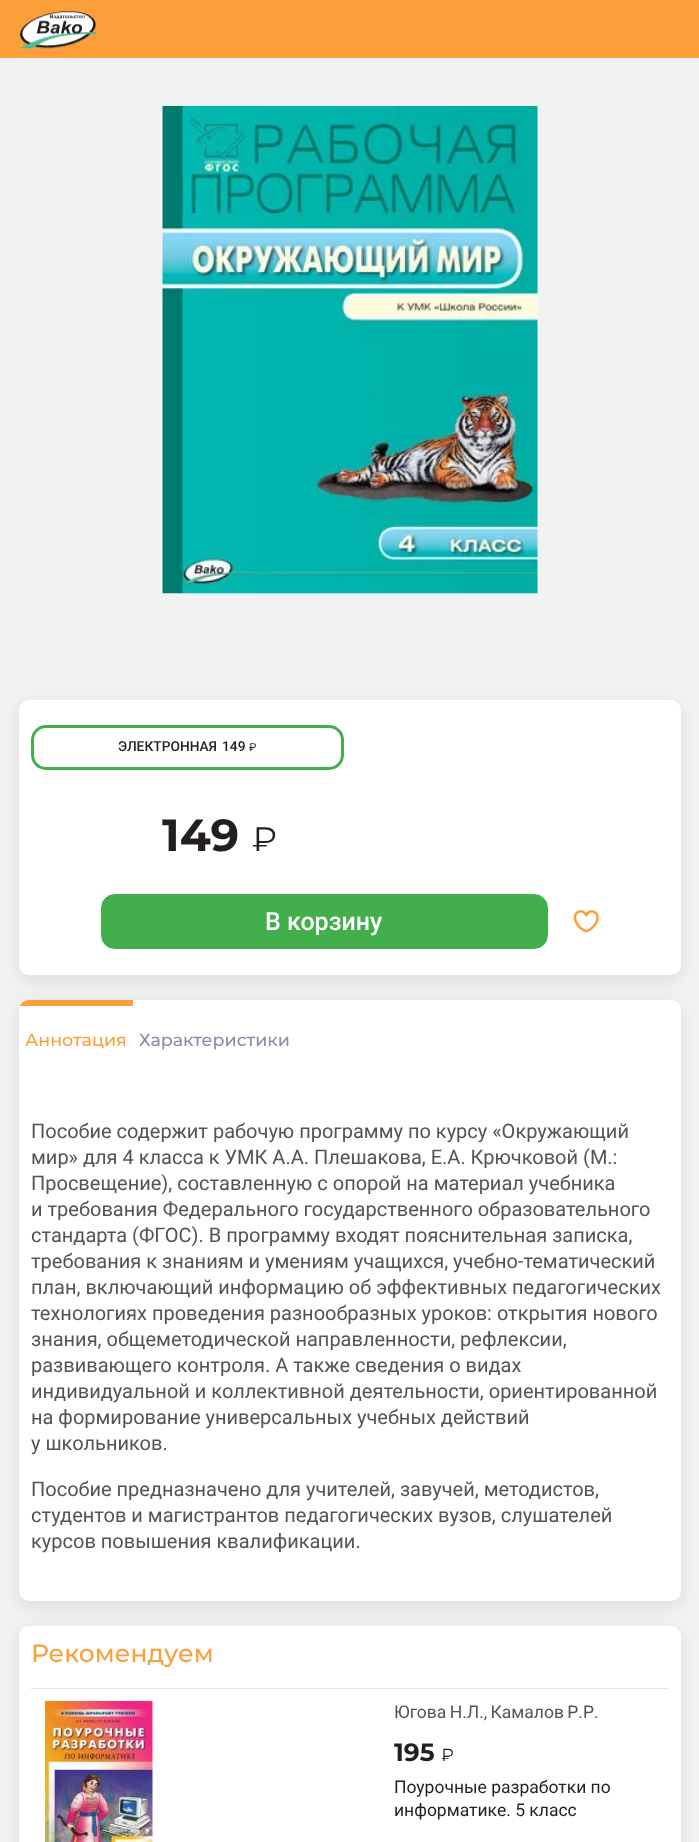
<svg xmlns="http://www.w3.org/2000/svg" width="699" height="1842">
<defs>
<clipPath id="clip1"><rect x="19" y="1000" width="662" height="601" rx="10"/></clipPath>
</defs>
<rect width="100%" height="100%" fill="#f2f2f2"/>
<rect width="699" height="58" fill="#fc9e3a"/>
<image x="20" y="11" width="76" height="38" href="media/1.png"/>
<image x="162" y="105" width="376" height="489" href="media/2.png"/>
<rect x="19" y="1631" width="662" height="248" rx="10" fill="#2c39421f" filter="blur(9px)"/>
<rect x="19" y="1626" width="662" height="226" rx="10" fill="#fff"/>
<rect x="19" y="1005" width="662" height="601" rx="10" fill="#2c39421f" filter="blur(9px)"/>
<rect x="19" y="1000" width="662" height="601" rx="10" fill="#fff"/>
<g clip-path="url(#clip1)">
<rect x="19" y="1000" width="114" height="6" fill="#fc9e3a"/>
</g>
<rect x="19" y="705" width="662" height="275" rx="10" fill="#2c39421f" filter="blur(9px)"/>
<rect x="19" y="700" width="662" height="275" rx="10" fill="#fff"/>
<rect x="32.5" y="726.5" width="310" height="42" rx="13.5" fill="none" stroke="#43ae4c" stroke-width="3"/>
<text x="118" y="751" style="font-family:Roboto;font-size:13.75px;font-weight:500;fill:#231f20">ЭЛЕКТРОННАЯ</text>
<text x="222" y="751" style="font-family:Roboto;font-size:13.75px;font-weight:500;fill:#231f20">149</text>
<text x="249" y="751" style="font-family:Roboto;font-size:11px;fill:#231f20">₽</text>
<text x="162" y="851" style="font-family:Montserrat;font-size:45px;font-weight:bold;fill:#231f20">149</text>
<text x="252" y="851" style="font-family:Montserrat;font-size:34px;fill:#231f20">₽</text>
<rect x="100.5" y="893.5" width="448" height="56" rx="14.5" fill="#43ae4c" stroke="#fff"/>
<text x="265" y="930" style="font-family:Roboto;font-size:25px;font-weight:500;fill:#fff">В корзину</text>
<image x="573" y="910" width="26" height="23" href="media/3.png"/>
<text x="25" y="1046" style="font-family:Montserrat;font-size:17.5px;font-weight:500;fill:#fc9e3a">Аннотация</text>
<text x="139" y="1046" style="font-family:Montserrat;font-size:17.5px;font-weight:500;fill:#858ea4">Характеристики</text>
<text x="31" y="1138" style="font-family:Roboto;font-size:20px;fill:#525457">Пособие содержит рабочую программу по курсу «Окружающий</text>
<text x="31" y="1164" style="font-family:Roboto;font-size:20px;fill:#525457">мир» для 4 класса к УМК А.А. Плешакова, Е.А. Крючковой (М.:</text>
<text x="31" y="1190" style="font-family:Roboto;font-size:20px;fill:#525457">Просвещение), составленную с опорой на материал учебника</text>
<text x="31" y="1216" style="font-family:Roboto;font-size:20px;fill:#525457">и требования Федерального государственного образовательного</text>
<text x="31" y="1242" style="font-family:Roboto;font-size:20px;fill:#525457">стандарта (ФГОС). В программу входят пояснительная записка,</text>
<text x="31" y="1268" style="font-family:Roboto;font-size:20px;fill:#525457">требования к знаниям и умениям учащихся, учебно-тематический</text>
<text x="31" y="1294" style="font-family:Roboto;font-size:20px;fill:#525457">план, включающий информацию об эффективных педагогических</text>
<text x="31" y="1320" style="font-family:Roboto;font-size:20px;fill:#525457">технологиях проведения разнообразных уроков: открытия нового</text>
<text x="31" y="1346" style="font-family:Roboto;font-size:20px;fill:#525457">знания, общеметодической направленности, рефлексии,</text>
<text x="31" y="1372" style="font-family:Roboto;font-size:20px;fill:#525457">развивающего контроля. А также сведения о видах</text>
<text x="31" y="1398" style="font-family:Roboto;font-size:20px;fill:#525457">индивидуальной и коллективной деятельности, ориентированной</text>
<text x="31" y="1424" style="font-family:Roboto;font-size:20px;fill:#525457">на формирование универсальных учебных действий</text>
<text x="31" y="1450" style="font-family:Roboto;font-size:20px;fill:#525457">у школьников.</text>
<text x="31" y="1496" style="font-family:Roboto;font-size:20px;fill:#525457">Пособие предназначено для учителей, завучей, методистов,</text>
<text x="31" y="1522" style="font-family:Roboto;font-size:20px;fill:#525457">студентов и магистрантов педагогических вузов, слушателей</text>
<text x="31" y="1548" style="font-family:Roboto;font-size:20px;fill:#525457">курсов повышения квалификации.</text>
<rect x="31" y="1688" width="638" height="1" fill="#dfe2e9"/>
<text x="31" y="1662" style="font-family:Montserrat;font-size:25px;font-weight:500;fill:#fc9e3a">Рекомендуем</text>
<image x="45" y="1700" width="108" height="142" href="media/4.png"/>
<text x="394" y="1718" word-spacing="-1" style="font-family:Roboto;font-size:17.5px;fill:#525457">Югова Н.Л., Камалов Р.Р.</text>
<text x="394" y="1761" style="font-family:Montserrat;font-size:25px;font-weight:bold;fill:#231f20">195</text>
<text x="441" y="1761" style="font-family:Montserrat;font-size:17.5px;fill:#231f20">₽</text>
<text x="394" y="1793" style="font-family:Roboto;font-size:17.5px;fill:#231f20">Поурочные разработки по</text>
<text x="394" y="1816" style="font-family:Roboto;font-size:17.5px;fill:#231f20">информатике. 5 класс</text>
</svg>
